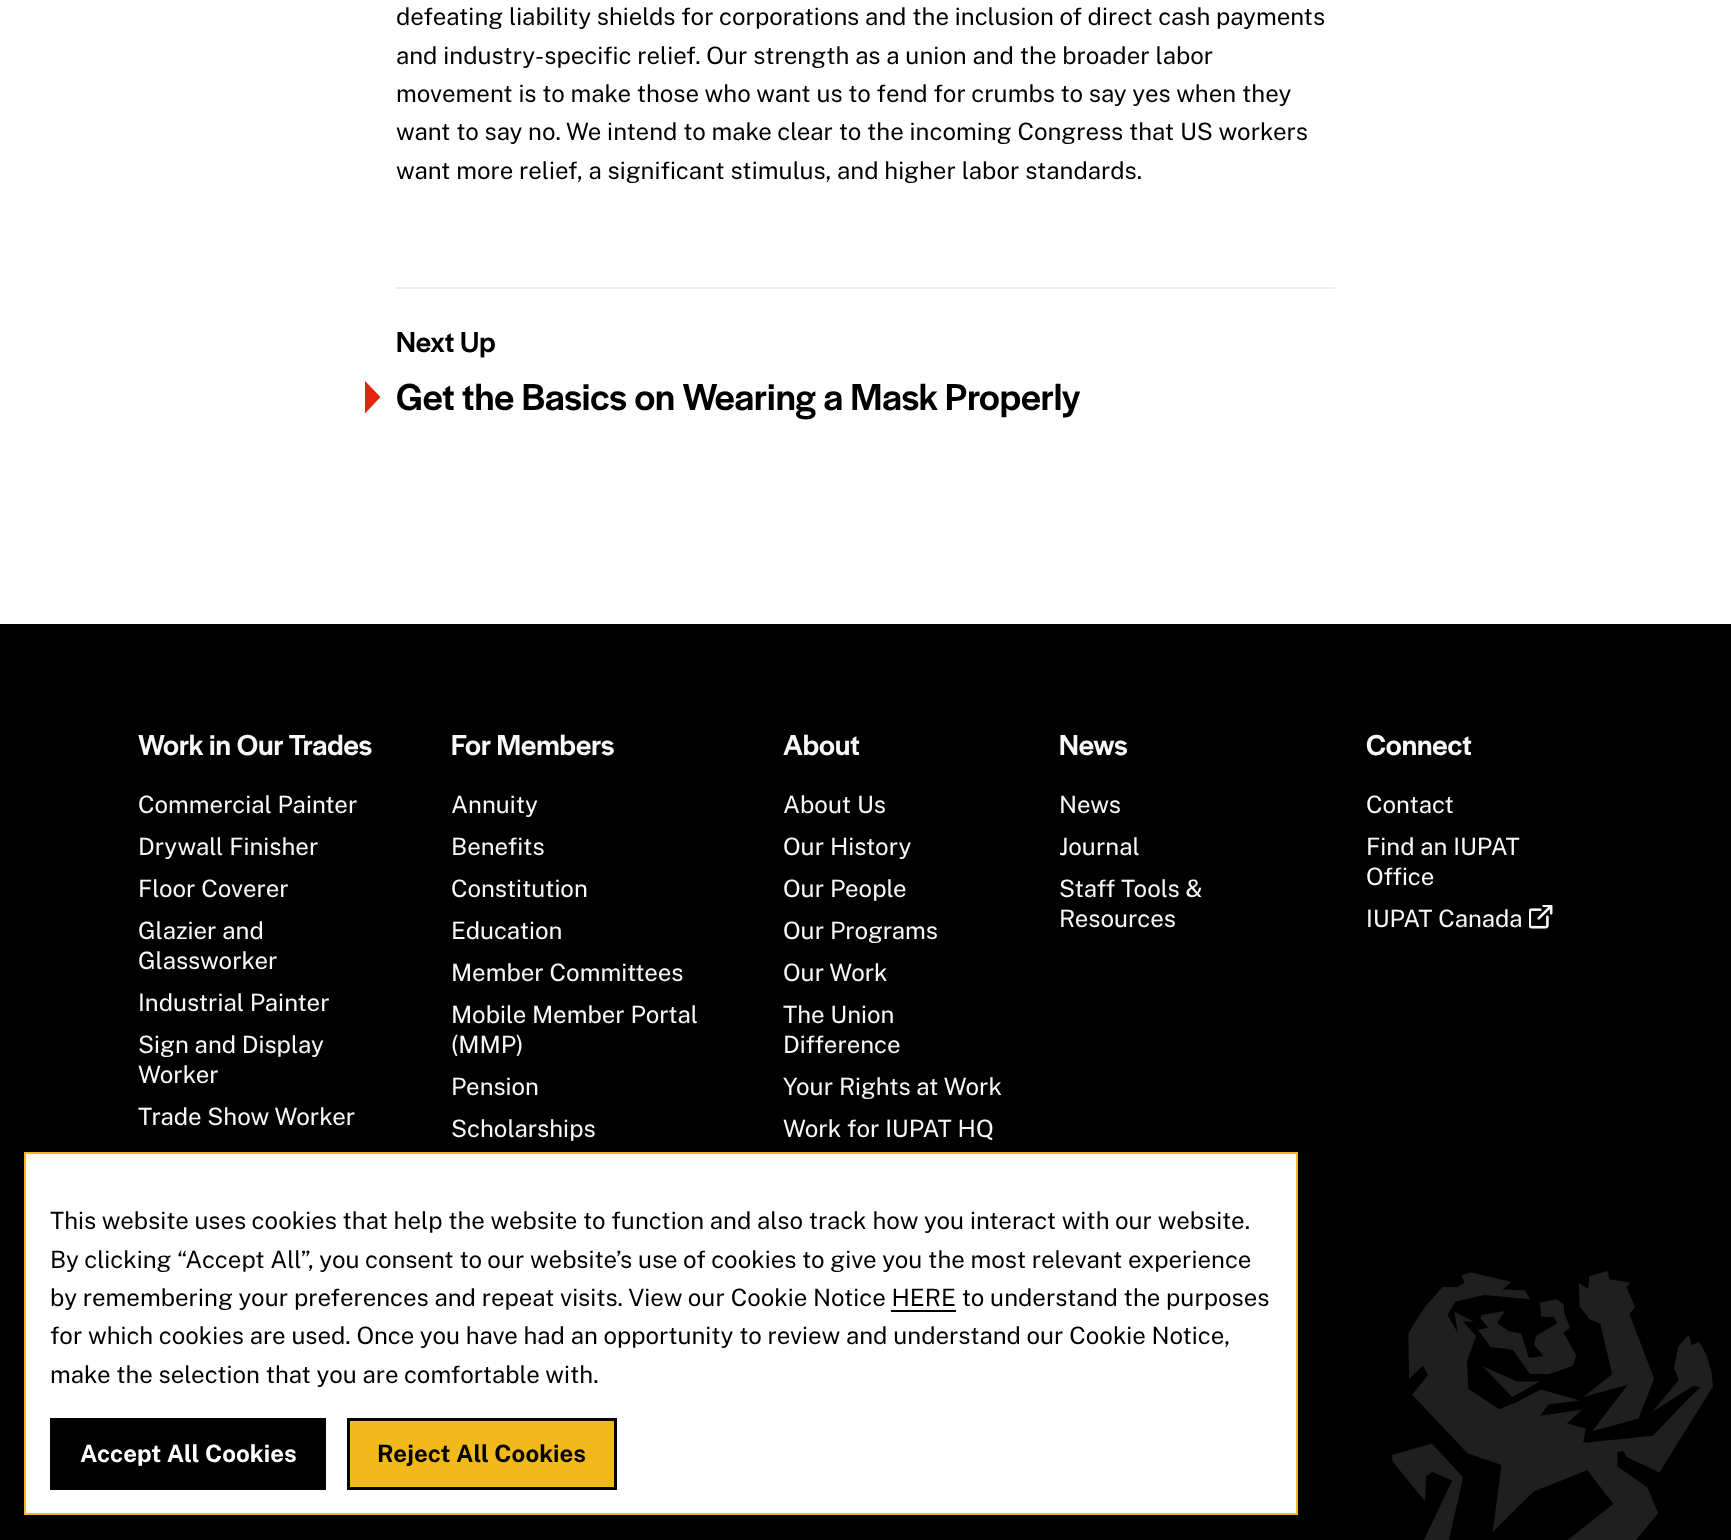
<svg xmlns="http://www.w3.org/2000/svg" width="1731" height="1540">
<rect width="100%" height="100%" fill="#fff"/>
<text x="396" y="25" style="font-family:Public Sans;font-size:24px;fill:#000">defeating liability shields for corporations and the inclusion of direct cash payments</text>
<text x="396" y="64" style="font-family:Public Sans;font-size:24px;fill:#000">and industry-specific relief. Our strength as a union and the broader labor</text>
<text x="396" y="102" style="font-family:Public Sans;font-size:24px;fill:#000">movement is to make those who want us to fend for crumbs to say yes when they</text>
<text x="396" y="140" style="font-family:Public Sans;font-size:24px;fill:#000">want to say no. We intend to make clear to the incoming Congress that US workers</text>
<text x="396" y="179" style="font-family:Public Sans;font-size:24px;fill:#000">want more relief, a significant stimulus, and higher labor standards.</text>
<rect x="396" y="287" width="939" height="2" fill="#efeeeb"/>
<text x="396" y="352" style="font-family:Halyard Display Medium;font-size:30px;font-weight:500;fill:#000">Next Up</text>
<path d="M365 381v32.5l15.5-16.5z" fill="#e42611"/>
<text x="396" y="410" style="font-family:Halyard Display Medium;font-size:39px;font-weight:500;fill:#000">Get the Basics on Wearing a Mask Properly</text>
<rect y="624" width="1731" height="916" fill="#000"/>
<text x="138" y="755" style="font-family:Halyard Display Medium;font-size:30px;font-weight:500;fill:#f8f8f7">Work in Our Trades</text>
<text x="138" y="813" style="font-family:Public Sans;font-size:24px;fill:#f8f8f7">Commercial Painter</text>
<text x="138" y="855" style="font-family:Public Sans;font-size:24px;fill:#f8f8f7">Drywall Finisher</text>
<text x="138" y="897" style="font-family:Public Sans;font-size:24px;fill:#f8f8f7">Floor Coverer</text>
<text x="138" y="939" style="font-family:Public Sans;font-size:24px;fill:#f8f8f7">Glazier and</text>
<text x="138" y="969" style="font-family:Public Sans;font-size:24px;fill:#f8f8f7">Glassworker</text>
<text x="138" y="1011" style="font-family:Public Sans;font-size:24px;fill:#f8f8f7">Industrial Painter</text>
<text x="138" y="1053" style="font-family:Public Sans;font-size:24px;fill:#f8f8f7">Sign and Display</text>
<text x="138" y="1083" style="font-family:Public Sans;font-size:24px;fill:#f8f8f7">Worker</text>
<text x="138" y="1125" style="font-family:Public Sans;font-size:24px;fill:#f8f8f7">Trade Show Worker</text>
<text x="451" y="755" style="font-family:Halyard Display Medium;font-size:30px;font-weight:500;fill:#f8f8f7">For Members</text>
<text x="451" y="813" style="font-family:Public Sans;font-size:24px;fill:#f8f8f7">Annuity</text>
<text x="451" y="855" style="font-family:Public Sans;font-size:24px;fill:#f8f8f7">Benefits</text>
<text x="451" y="897" style="font-family:Public Sans;font-size:24px;fill:#f8f8f7">Constitution</text>
<text x="451" y="939" style="font-family:Public Sans;font-size:24px;fill:#f8f8f7">Education</text>
<text x="451" y="981" style="font-family:Public Sans;font-size:24px;fill:#f8f8f7">Member Committees</text>
<text x="451" y="1023" style="font-family:Public Sans;font-size:24px;fill:#f8f8f7">Mobile Member Portal</text>
<text x="451" y="1053" style="font-family:Public Sans;font-size:24px;fill:#f8f8f7">(MMP)</text>
<text x="451" y="1095" style="font-family:Public Sans;font-size:24px;fill:#f8f8f7">Pension</text>
<text x="451" y="1137" style="font-family:Public Sans;font-size:24px;fill:#f8f8f7">Scholarships</text>
<text x="783" y="755" style="font-family:Halyard Display Medium;font-size:30px;font-weight:500;fill:#f8f8f7">About</text>
<text x="783" y="813" style="font-family:Public Sans;font-size:24px;fill:#f8f8f7">About Us</text>
<text x="783" y="855" style="font-family:Public Sans;font-size:24px;fill:#f8f8f7">Our History</text>
<text x="783" y="897" style="font-family:Public Sans;font-size:24px;fill:#f8f8f7">Our People</text>
<text x="783" y="939" style="font-family:Public Sans;font-size:24px;fill:#f8f8f7">Our Programs</text>
<text x="783" y="981" style="font-family:Public Sans;font-size:24px;fill:#f8f8f7">Our Work</text>
<text x="783" y="1023" style="font-family:Public Sans;font-size:24px;fill:#f8f8f7">The Union</text>
<text x="783" y="1053" style="font-family:Public Sans;font-size:24px;fill:#f8f8f7">Difference</text>
<text x="783" y="1095" style="font-family:Public Sans;font-size:24px;fill:#f8f8f7">Your Rights at Work</text>
<text x="783" y="1137" style="font-family:Public Sans;font-size:24px;fill:#f8f8f7">Work for IUPAT HQ</text>
<text x="1059" y="755" style="font-family:Halyard Display Medium;font-size:30px;font-weight:500;fill:#f8f8f7">News</text>
<text x="1059" y="813" style="font-family:Public Sans;font-size:24px;fill:#f8f8f7">News</text>
<text x="1059" y="855" style="font-family:Public Sans;font-size:24px;fill:#f8f8f7">Journal</text>
<text x="1059" y="897" style="font-family:Public Sans;font-size:24px;fill:#f8f8f7">Staff Tools &amp;</text>
<text x="1059" y="927" style="font-family:Public Sans;font-size:24px;fill:#f8f8f7">Resources</text>
<text x="1366" y="755" style="font-family:Halyard Display Medium;font-size:30px;font-weight:500;fill:#f8f8f7">Connect</text>
<text x="1366" y="813" style="font-family:Public Sans;font-size:24px;fill:#f8f8f7">Contact</text>
<text x="1366" y="855" style="font-family:Public Sans;font-size:24px;fill:#f8f8f7">Find an IUPAT</text>
<text x="1366" y="885" style="font-family:Public Sans;font-size:24px;fill:#f8f8f7">Office</text>
<text x="1366" y="927" style="font-family:Public Sans;font-size:24px;fill:#f8f8f7">IUPAT Canada</text>
<image x="1529" y="905" width="24" height="24" href="media/1.png"/>
<image x="1392" y="1271" width="321" height="269" href="media/2.png"/>
<rect x="25" y="1153" width="1272" height="361" fill="#fff" stroke="#f2b91c" stroke-width="2"/>
<text x="50" y="1229" style="font-family:Public Sans;font-size:24px;fill:#000">This website uses cookies that help the website to function and also track how you interact with our website.</text>
<text x="50" y="1268" style="font-family:Public Sans;font-size:24px;fill:#000">By clicking “Accept All”, you consent to our website’s use of cookies to give you the most relevant experience</text>
<text x="50" y="1306" style="font-family:Public Sans;font-size:24px;fill:#000">by remembering your preferences and repeat visits. View our Cookie Notice HERE to understand the purposes</text>
<rect x="891" y="1310" width="65" height="2" fill="#000"/>
<text x="50" y="1344" style="font-family:Public Sans;font-size:24px;fill:#000">for which cookies are used. Once you have had an opportunity to review and understand our Cookie Notice,</text>
<text x="50" y="1383" style="font-family:Public Sans;font-size:24px;fill:#000">make the selection that you are comfortable with.</text>
<rect x="51.5" y="1419.5" width="273" height="69" fill="#000" stroke="#000" stroke-width="3"/>
<text x="80" y="1462" style="font-family:Public Sans;font-size:24px;font-weight:bold;fill:#fff">Accept All Cookies</text>
<rect x="348.5" y="1419.5" width="267" height="69" fill="#f2b91c" stroke="#000" stroke-width="3"/>
<text x="377" y="1462" style="font-family:Public Sans;font-size:24px;font-weight:bold;fill:#000">Reject All Cookies</text>
</svg>
